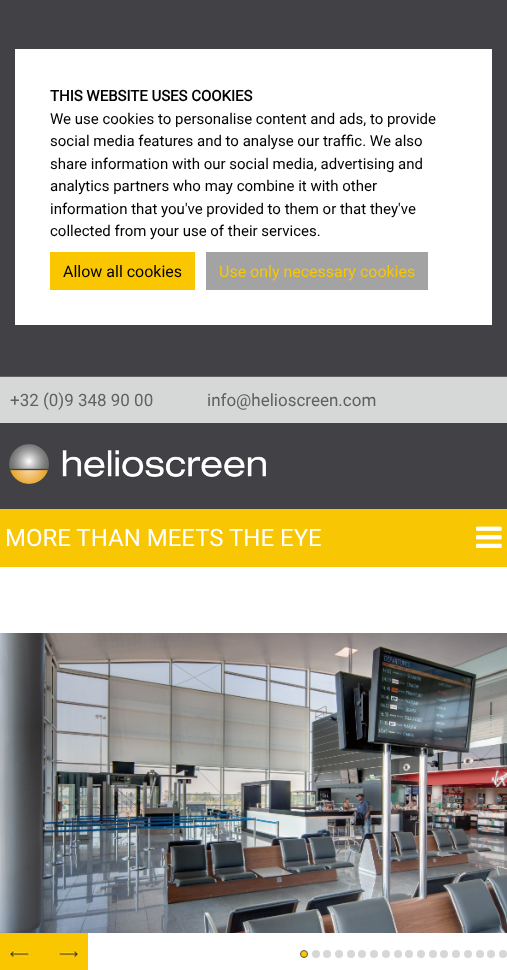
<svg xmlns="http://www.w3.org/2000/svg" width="507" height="970">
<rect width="100%" height="100%" fill="#fff"/>
<rect width="507" height="376" fill="#424246"/>
<rect y="376" width="507" height="1" fill="#626161"/>
<rect x="15" y="49" width="477" height="276" fill="#fff"/>
<text x="50" y="101" style="font-family:Roboto;font-size:15px;font-weight:bold;fill:#000">THIS WEBSITE USES COOKIES</text>
<text x="50" y="124" style="font-family:Roboto;font-size:15px;fill:#000">We use cookies to personalise content and ads, to provide</text>
<text x="50" y="146" style="font-family:Roboto;font-size:15px;fill:#000">social media features and to analyse our traffic. We also</text>
<text x="50" y="169" style="font-family:Roboto;font-size:15px;fill:#000">share information with our social media, advertising and</text>
<text x="50" y="191" style="font-family:Roboto;font-size:15px;fill:#000">analytics partners who may combine it with other</text>
<text x="50" y="214" style="font-family:Roboto;font-size:15px;fill:#000">information that you've provided to them or that they've</text>
<text x="50" y="236" style="font-family:Roboto;font-size:15px;fill:#000">collected from your use of their services.</text>
<rect x="50" y="252" width="145" height="38" fill="#f9c600"/>
<text x="63" y="277" style="font-family:Roboto;font-size:16px;fill:#000">Allow all cookies</text>
<rect x="206" y="252" width="222" height="38" fill="#a3a3a3"/>
<text x="219" y="277" style="font-family:Roboto;font-size:16px;fill:#f9c600">Use only necessary cookies</text>
<rect y="377" width="507" height="46" fill="#d6d7d7"/>
<text x="10" y="406" style="font-family:Roboto;font-size:17px;fill:#626161">+32 (0)9 348 90 00</text>
<text x="207" y="406" style="font-family:Roboto;font-size:17px;fill:#626161">info@helioscreen.com</text>
<rect y="423" width="507" height="86" fill="#424246"/>
<image x="9" y="444" width="258" height="41" href="media/1.png"/>
<rect y="509" width="507" height="58" fill="#f8c602"/>
<text x="5" y="546" style="font-family:Roboto;font-size:24px;fill:#fff">MORE THAN MEETS THE EYE</text>
<image x="476" y="526" width="26" height="22" href="media/2.png"/>
<image x="0" y="633" width="507" height="300" href="media/3.png"/>
<rect y="933" width="88" height="37" fill="#f9c600"/>
<image x="8" y="949" width="24" height="8" href="media/4.png"/>
<image x="54" y="949" width="24" height="8" href="media/5.png"/>
<circle cx="304" cy="954" r="3.5" fill="#fcc800" stroke="#585752"/>
<circle cx="316" cy="954" r="4" fill="#d6d7d7"/>
<circle cx="327" cy="954" r="4" fill="#d6d7d7"/>
<circle cx="339" cy="954" r="4" fill="#d6d7d7"/>
<circle cx="351" cy="954" r="4" fill="#d6d7d7"/>
<circle cx="362" cy="954" r="4" fill="#d6d7d7"/>
<circle cx="374" cy="954" r="4" fill="#d6d7d7"/>
<circle cx="386" cy="954" r="4" fill="#d6d7d7"/>
<circle cx="398" cy="954" r="4" fill="#d6d7d7"/>
<circle cx="409" cy="954" r="4" fill="#d6d7d7"/>
<circle cx="421" cy="954" r="4" fill="#d6d7d7"/>
<circle cx="433" cy="954" r="4" fill="#d6d7d7"/>
<circle cx="444" cy="954" r="4" fill="#d6d7d7"/>
<circle cx="456" cy="954" r="4" fill="#d6d7d7"/>
<circle cx="468" cy="954" r="4" fill="#d6d7d7"/>
<circle cx="480" cy="954" r="4" fill="#d6d7d7"/>
<circle cx="491" cy="954" r="4" fill="#d6d7d7"/>
<circle cx="503" cy="954" r="4" fill="#d6d7d7"/>
</svg>
